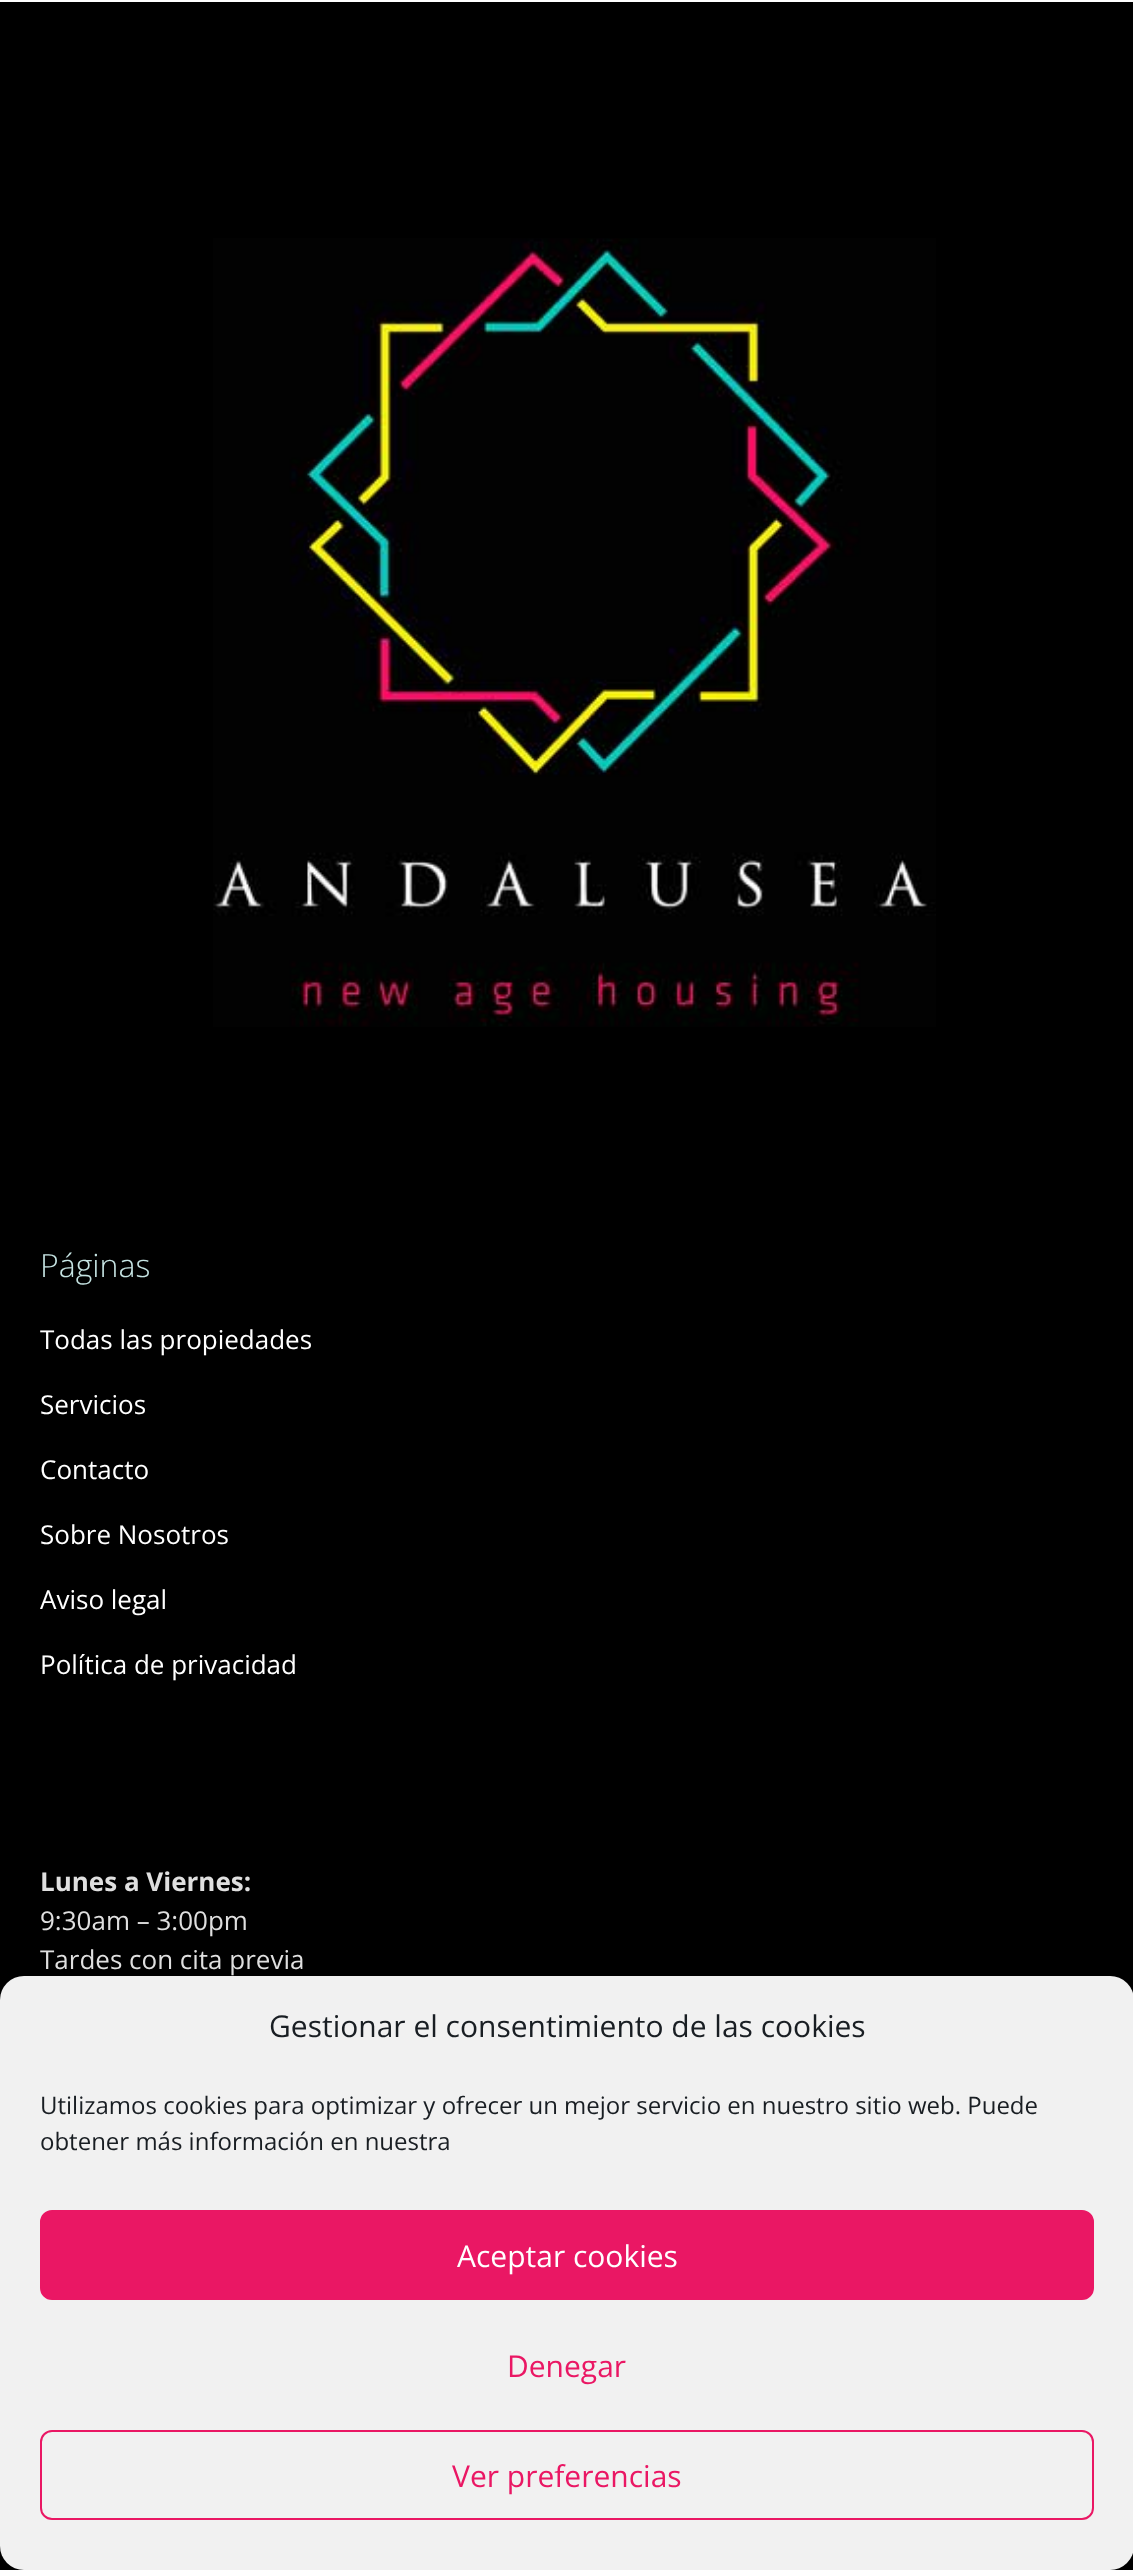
<svg xmlns="http://www.w3.org/2000/svg" width="1133" height="2570">
<rect width="100%" height="100%" fill="#fff"/>
<rect y="2" width="1133" height="2568" fill="#000"/>
<image x="213" y="238" width="723" height="789" href="media/1.png"/>
<text x="40" y="1277" style="font-family:Open Sans;font-size:32px;font-weight:300;fill:#c6e4e3">Páginas</text>
<text x="40" y="1349" style="font-family:Open Sans;font-size:26px;fill:#fff">Todas las propiedades</text>
<text x="40" y="1414" style="font-family:Open Sans;font-size:26px;fill:#fff">Servicios</text>
<text x="40" y="1479" style="font-family:Open Sans;font-size:26px;fill:#fff">Contacto</text>
<text x="40" y="1544" style="font-family:Open Sans;font-size:26px;fill:#fff">Sobre Nosotros</text>
<text x="40" y="1609" style="font-family:Open Sans;font-size:26px;fill:#fff">Aviso legal</text>
<text x="40" y="1674" style="font-family:Open Sans;font-size:26px;fill:#fff">Política de privacidad</text>
<text x="40" y="1891" style="font-family:Open Sans;font-size:26px;font-weight:bold;fill:#dfdfdf">Lunes a Viernes:</text>
<text x="40" y="1930" style="font-family:Open Sans;font-size:26px;fill:#dfdfdf">9:30am – 3:00pm</text>
<text x="40" y="1969" style="font-family:Open Sans;font-size:26px;fill:#dfdfdf">Tardes con cita previa</text>
<rect y="1976" width="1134" height="594" rx="24" fill="#f1f1f1"/>
<text x="269" y="2037" style="font-family:Open Sans;font-size:30px;fill:#191e23">Gestionar el consentimiento de las cookies</text>
<text x="40" y="2114" style="font-family:Open Sans;font-size:24px;fill:#191e23">Utilizamos cookies para optimizar y ofrecer un mejor servicio en nuestro sitio web. Puede</text>
<text x="40" y="2150" style="font-family:Open Sans;font-size:24px;fill:#191e23">obtener más información en nuestra</text>
<rect x="41" y="2211" width="1052" height="88" rx="11" fill="#ea1764" stroke="#ea1764" stroke-width="2"/>
<text x="457" y="2267" style="font-family:Open Sans;font-size:30px;fill:#fff">Aceptar cookies</text>
<text x="507" y="2377" style="font-family:Open Sans;font-size:30px;fill:#ea1764">Denegar</text>
<rect x="41" y="2431" width="1052" height="88" rx="11" fill="none" stroke="#ea1764" stroke-width="2"/>
<text x="452" y="2487" style="font-family:Open Sans;font-size:30px;fill:#ea1764">Ver preferencias</text>
</svg>
